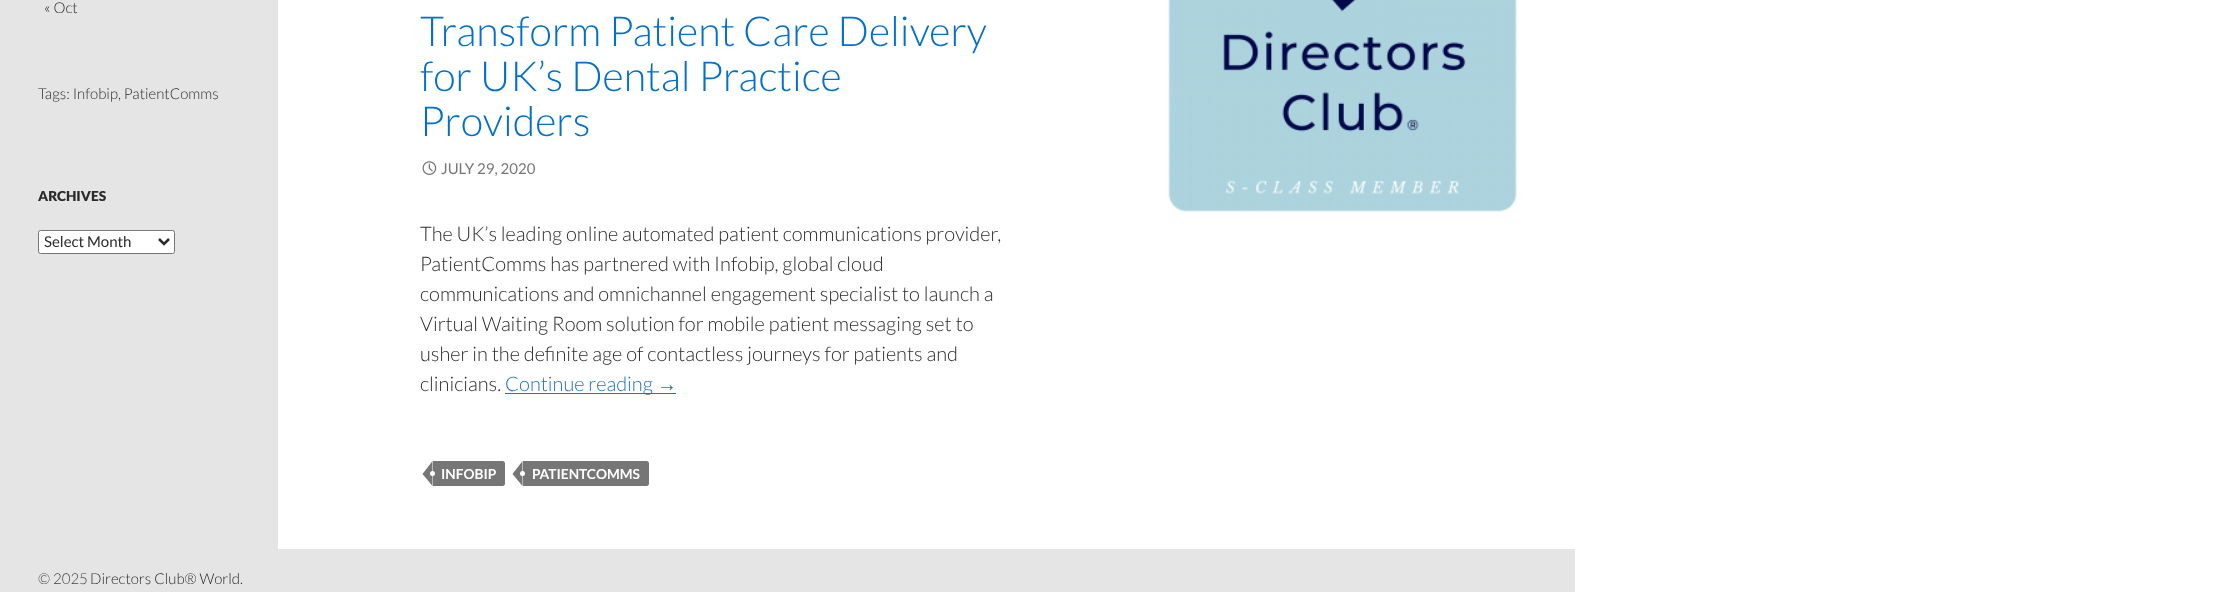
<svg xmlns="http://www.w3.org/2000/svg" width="2220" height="592">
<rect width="100%" height="100%" fill="#fff"/>
<rect width="278" height="549" fill="#e5e5e5"/>
<text x="44" y="13" style="font-family:Lato;font-size:15px;font-weight:300;fill:#2b2b2b">« Oct</text>
<text x="38" y="99" style="font-family:Lato;font-size:15px;font-weight:300;fill:#2b2b2b">Tags: Infobip, PatientComms</text>
<text x="38" y="201" style="font-family:Lato;font-size:13.75px;font-weight:900;fill:#2b2b2b">ARCHIVES</text>
<rect x="38.5" y="230.5" width="136" height="23" rx="2" fill="#fff" stroke="#767676"/>
<path d="M159 239l5 5l5-5" fill="none" stroke="#2b2b2b" stroke-width="2.5"/>
<text x="44" y="247" style="font-family:Lato;font-size:15px;fill:#2b2b2b">Select Month</text>
<text x="420" y="46" style="font-family:Lato;font-size:41.25px;font-weight:300;fill:#016fd0">Transform Patient Care Delivery</text>
<text x="420" y="91" style="font-family:Lato;font-size:41.25px;font-weight:300;fill:#016fd0">for UK’s Dental Practice</text>
<text x="420" y="136" style="font-family:Lato;font-size:41.25px;font-weight:300;fill:#016fd0">Providers</text>
<image x="422" y="161" width="15" height="14" href="media/1.png"/>
<text x="441" y="174" style="font-family:Lato;font-size:15px;fill:#767676">JULY 29, 2020</text>
<text x="420" y="241" style="font-family:Lato;font-size:20px;font-weight:300;fill:#2b2b2b">The UK’s leading online automated patient communications provider,</text>
<text x="420" y="271" style="font-family:Lato;font-size:20px;font-weight:300;fill:#2b2b2b">PatientComms has partnered with Infobip, global cloud</text>
<text x="420" y="301" style="font-family:Lato;font-size:20px;font-weight:300;fill:#2b2b2b">communications and omnichannel engagement specialist to launch a</text>
<text x="420" y="331" style="font-family:Lato;font-size:20px;font-weight:300;fill:#2b2b2b">Virtual Waiting Room solution for mobile patient messaging set to</text>
<text x="420" y="361" style="font-family:Lato;font-size:20px;font-weight:300;fill:#2b2b2b">usher in the definite age of contactless journeys for patients and</text>
<text x="420" y="391" style="font-family:Lato;font-size:20px;font-weight:300;fill:#2b2b2b">clinicians.</text>
<rect x="505" y="393" width="171" height="1" fill="#1e73be"/>
<text x="505" y="391" style="font-family:Lato;font-size:20px;font-weight:300;fill:#1e73be">Continue reading</text>
<text x="657" y="391" style="font-family:Liberation Sans;font-size:20px;fill:#1e73be">→</text>
<path d="M433 461h69.5c1.5 0 2.5 1 2.5 2.5v20c0 1.5-1 2.5-2.5 2.5h-69.5z" fill="#767676"/>
<path d="M432.5 461v25l-10-12z" fill="#767676"/>
<text x="441" y="479" style="font-family:Lato;font-size:13.75px;font-weight:bold;fill:#fff">INFOBIP</text>
<circle cx="432.5" cy="473.5" r="2.5" fill="#fff"/>
<path d="M523 461h123.5c1.5 0 2.5 1 2.5 2.5v20c0 1.5-1 2.5-2.5 2.5h-123.5z" fill="#767676"/>
<path d="M522.5 461v25l-10-12z" fill="#767676"/>
<text x="532" y="479" style="font-family:Lato;font-size:13.75px;font-weight:bold;fill:#fff">PATIENTCOMMS</text>
<circle cx="522.5" cy="473.5" r="2.5" fill="#fff"/>
<image x="1168" y="0" width="349" height="212" href="media/2.png"/>
<rect y="549" width="1575" height="43" fill="#e5e5e5"/>
<text x="38" y="584" style="font-family:Lato;font-size:15px;font-weight:300;fill:#454545">© 2025</text>
<text x="90" y="584" style="font-family:Lato;font-size:15px;font-weight:300;fill:#2b2b2b">Directors Club® World.</text>
</svg>
